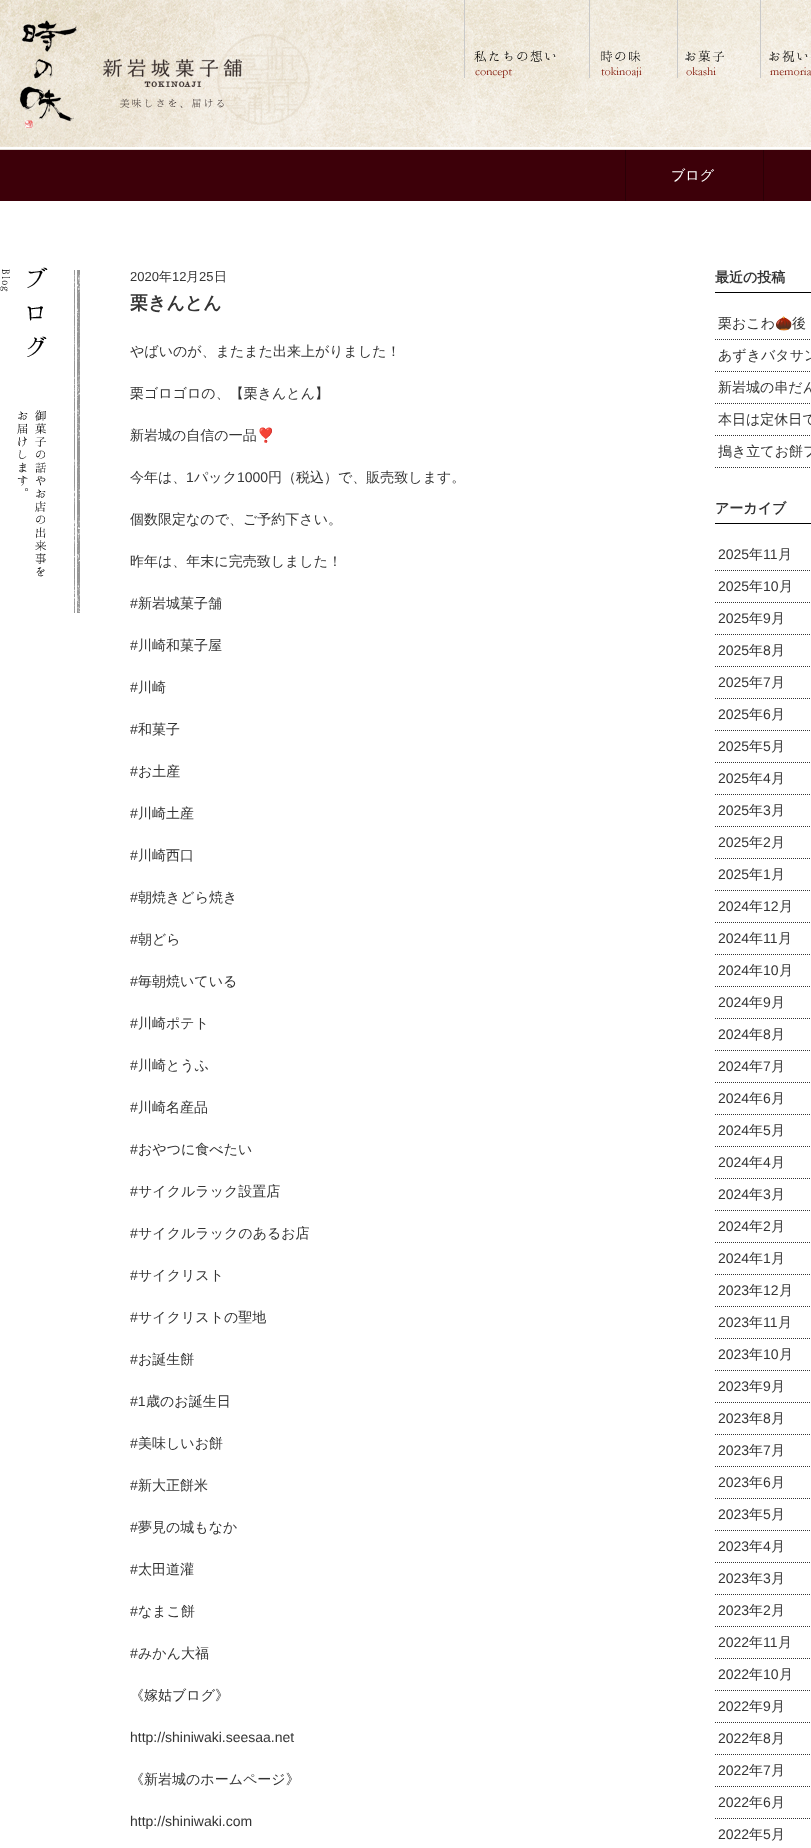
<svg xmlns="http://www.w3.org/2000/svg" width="811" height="1848">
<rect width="100%" height="100%" fill="#fff"/>
<image x="0" y="0" width="811" height="147" href="media/1.png"/>
<image x="20" y="20" width="290" height="108" href="media/2.png"/>
<image x="464" y="0" width="92" height="78" href="media/3.png"/>
<image x="589" y="0" width="53" height="78" href="media/4.png"/>
<image x="677" y="0" width="47" height="78" href="media/5.png"/>
<image x="760" y="0" width="51" height="78" href="media/6.png"/>
<rect y="150" width="811" height="51" fill="#3d0009"/>
<rect y="149" width="811" height="1" fill="#dfd9d1"/>
<rect x="625" y="150" width="1" height="51" fill="#2b0006"/>
<text x="671" y="180" style="font-family:WenQuanYi Zen Hei;font-size:14px;font-weight:500;fill:#fff">ブログ</text>
<rect x="763" y="150" width="1" height="51" fill="#2b0006"/>
<image x="0" y="267" width="80" height="346" href="media/7.png"/>
<text x="130" y="281" style="font-family:Liberation Sans;font-size:13px;fill:#343434">2020</text>
<text x="159" y="281" style="font-family:WenQuanYi Zen Hei;font-size:13px;font-weight:500;fill:#343434">年</text>
<text x="172" y="281" style="font-family:Liberation Sans;font-size:13px;fill:#343434">12</text>
<text x="186" y="281" style="font-family:WenQuanYi Zen Hei;font-size:13px;font-weight:500;fill:#343434">月</text>
<text x="199" y="281" style="font-family:Liberation Sans;font-size:13px;fill:#343434">25</text>
<text x="214" y="281" style="font-family:WenQuanYi Zen Hei;font-size:13px;font-weight:500;fill:#343434">日</text>
<text x="130" y="309" style="font-family:WenQuanYi Zen Hei;font-size:18px;font-weight:bold;fill:#343434">栗きんとん</text>
<text x="130" y="356" style="font-family:WenQuanYi Zen Hei;font-size:14px;font-weight:500;fill:#343434">やばいのが、またまた出来上がりました！</text>
<text x="130" y="398" style="font-family:WenQuanYi Zen Hei;font-size:14px;font-weight:500;fill:#343434">栗ゴロゴロの、【栗きんとん】</text>
<text x="130" y="440" style="font-family:WenQuanYi Zen Hei;font-size:14px;font-weight:500;fill:#343434">新岩城の自信の一品</text>
<text x="257" y="440" style="font-family:Noto Color Emoji;font-size:14px;fill:#343434">❣️</text>
<text x="130" y="482" style="font-family:WenQuanYi Zen Hei;font-size:14px;font-weight:500;fill:#343434">今年は、</text>
<text x="186" y="482" style="font-family:Liberation Sans;font-size:14px;fill:#343434">1</text>
<text x="194" y="482" style="font-family:WenQuanYi Zen Hei;font-size:14px;font-weight:500;fill:#343434">パック</text>
<text x="237" y="482" style="font-family:Liberation Sans;font-size:14px;fill:#343434">1000</text>
<text x="268" y="482" style="font-family:WenQuanYi Zen Hei;font-size:14px;font-weight:500;fill:#343434">円（税込）で、販売致します。</text>
<text x="130" y="524" style="font-family:WenQuanYi Zen Hei;font-size:14px;font-weight:500;fill:#343434">個数限定なので、ご予約下さい。</text>
<text x="130" y="566" style="font-family:WenQuanYi Zen Hei;font-size:14px;font-weight:500;fill:#343434">昨年は、年末に完売致しました！</text>
<text x="130" y="608" style="font-family:Liberation Sans;font-size:14px;fill:#343434">#</text>
<text x="138" y="608" style="font-family:WenQuanYi Zen Hei;font-size:14px;font-weight:500;fill:#343434">新岩城菓子舗</text>
<text x="130" y="650" style="font-family:Liberation Sans;font-size:14px;fill:#343434">#</text>
<text x="138" y="650" style="font-family:WenQuanYi Zen Hei;font-size:14px;font-weight:500;fill:#343434">川崎和菓子屋</text>
<text x="130" y="692" style="font-family:Liberation Sans;font-size:14px;fill:#343434">#</text>
<text x="138" y="692" style="font-family:WenQuanYi Zen Hei;font-size:14px;font-weight:500;fill:#343434">川崎</text>
<text x="130" y="734" style="font-family:Liberation Sans;font-size:14px;fill:#343434">#</text>
<text x="138" y="734" style="font-family:WenQuanYi Zen Hei;font-size:14px;font-weight:500;fill:#343434">和菓子</text>
<text x="130" y="776" style="font-family:Liberation Sans;font-size:14px;fill:#343434">#</text>
<text x="138" y="776" style="font-family:WenQuanYi Zen Hei;font-size:14px;font-weight:500;fill:#343434">お土産</text>
<text x="130" y="818" style="font-family:Liberation Sans;font-size:14px;fill:#343434">#</text>
<text x="138" y="818" style="font-family:WenQuanYi Zen Hei;font-size:14px;font-weight:500;fill:#343434">川崎土産</text>
<text x="130" y="860" style="font-family:Liberation Sans;font-size:14px;fill:#343434">#</text>
<text x="138" y="860" style="font-family:WenQuanYi Zen Hei;font-size:14px;font-weight:500;fill:#343434">川崎西口</text>
<text x="130" y="902" style="font-family:Liberation Sans;font-size:14px;fill:#343434">#</text>
<text x="138" y="902" style="font-family:WenQuanYi Zen Hei;font-size:14px;font-weight:500;fill:#343434">朝焼きどら焼き</text>
<text x="130" y="944" style="font-family:Liberation Sans;font-size:14px;fill:#343434">#</text>
<text x="138" y="944" style="font-family:WenQuanYi Zen Hei;font-size:14px;font-weight:500;fill:#343434">朝どら</text>
<text x="130" y="986" style="font-family:Liberation Sans;font-size:14px;fill:#343434">#</text>
<text x="138" y="986" style="font-family:WenQuanYi Zen Hei;font-size:14px;font-weight:500;fill:#343434">毎朝焼いている</text>
<text x="130" y="1028" style="font-family:Liberation Sans;font-size:14px;fill:#343434">#</text>
<text x="138" y="1028" style="font-family:WenQuanYi Zen Hei;font-size:14px;font-weight:500;fill:#343434">川崎ポテト</text>
<text x="130" y="1070" style="font-family:Liberation Sans;font-size:14px;fill:#343434">#</text>
<text x="138" y="1070" style="font-family:WenQuanYi Zen Hei;font-size:14px;font-weight:500;fill:#343434">川崎とうふ</text>
<text x="130" y="1112" style="font-family:Liberation Sans;font-size:14px;fill:#343434">#</text>
<text x="138" y="1112" style="font-family:WenQuanYi Zen Hei;font-size:14px;font-weight:500;fill:#343434">川崎名産品</text>
<text x="130" y="1154" style="font-family:Liberation Sans;font-size:14px;fill:#343434">#</text>
<text x="138" y="1154" style="font-family:WenQuanYi Zen Hei;font-size:14px;font-weight:500;fill:#343434">おやつに食べたい</text>
<text x="130" y="1196" style="font-family:Liberation Sans;font-size:14px;fill:#343434">#</text>
<text x="138" y="1196" style="font-family:WenQuanYi Zen Hei;font-size:14px;font-weight:500;fill:#343434">サイクルラック設置店</text>
<text x="130" y="1238" style="font-family:Liberation Sans;font-size:14px;fill:#343434">#</text>
<text x="138" y="1238" style="font-family:WenQuanYi Zen Hei;font-size:14px;font-weight:500;fill:#343434">サイクルラックのあるお店</text>
<text x="130" y="1280" style="font-family:Liberation Sans;font-size:14px;fill:#343434">#</text>
<text x="138" y="1280" style="font-family:WenQuanYi Zen Hei;font-size:14px;font-weight:500;fill:#343434">サイクリスト</text>
<text x="130" y="1322" style="font-family:Liberation Sans;font-size:14px;fill:#343434">#</text>
<text x="138" y="1322" style="font-family:WenQuanYi Zen Hei;font-size:14px;font-weight:500;fill:#343434">サイクリストの聖地</text>
<text x="130" y="1364" style="font-family:Liberation Sans;font-size:14px;fill:#343434">#</text>
<text x="138" y="1364" style="font-family:WenQuanYi Zen Hei;font-size:14px;font-weight:500;fill:#343434">お誕生餅</text>
<text x="130" y="1406" style="font-family:Liberation Sans;font-size:14px;fill:#343434">#1</text>
<text x="146" y="1406" style="font-family:WenQuanYi Zen Hei;font-size:14px;font-weight:500;fill:#343434">歳のお誕生日</text>
<text x="130" y="1448" style="font-family:Liberation Sans;font-size:14px;fill:#343434">#</text>
<text x="138" y="1448" style="font-family:WenQuanYi Zen Hei;font-size:14px;font-weight:500;fill:#343434">美味しいお餅</text>
<text x="130" y="1490" style="font-family:Liberation Sans;font-size:14px;fill:#343434">#</text>
<text x="138" y="1490" style="font-family:WenQuanYi Zen Hei;font-size:14px;font-weight:500;fill:#343434">新大正餅米</text>
<text x="130" y="1532" style="font-family:Liberation Sans;font-size:14px;fill:#343434">#</text>
<text x="138" y="1532" style="font-family:WenQuanYi Zen Hei;font-size:14px;font-weight:500;fill:#343434">夢見の城もなか</text>
<text x="130" y="1574" style="font-family:Liberation Sans;font-size:14px;fill:#343434">#</text>
<text x="138" y="1574" style="font-family:WenQuanYi Zen Hei;font-size:14px;font-weight:500;fill:#343434">太田道灌</text>
<text x="130" y="1616" style="font-family:Liberation Sans;font-size:14px;fill:#343434">#</text>
<text x="138" y="1616" style="font-family:WenQuanYi Zen Hei;font-size:14px;font-weight:500;fill:#343434">なまこ餅</text>
<text x="130" y="1658" style="font-family:Liberation Sans;font-size:14px;fill:#343434">#</text>
<text x="138" y="1658" style="font-family:WenQuanYi Zen Hei;font-size:14px;font-weight:500;fill:#343434">みかん大福</text>
<text x="130" y="1700" style="font-family:WenQuanYi Zen Hei;font-size:14px;font-weight:500;fill:#343434">《嫁姑ブログ》</text>
<text x="130" y="1742" style="font-family:Liberation Sans;font-size:14px;fill:#343434">http://shiniwaki.seesaa.net</text>
<text x="130" y="1784" style="font-family:WenQuanYi Zen Hei;font-size:14px;font-weight:500;fill:#343434">《新岩城のホームページ》</text>
<text x="130" y="1826" style="font-family:Liberation Sans;font-size:14px;fill:#343434">http://shiniwaki.com</text>
<rect x="715" y="292" width="96" height="1" fill="#000"/>
<text x="715" y="282" style="font-family:WenQuanYi Zen Hei;font-size:14px;font-weight:bold;fill:#343434">最近の投稿</text>
<path d="M715 339.5h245" fill="none" stroke="#343434" stroke-dasharray="1 1"/>
<text x="718" y="328" style="font-family:WenQuanYi Zen Hei;font-size:14px;font-weight:500;fill:#343434">栗おこわ</text>
<text x="775" y="328" style="font-family:Noto Color Emoji;font-size:14px;fill:#343434">🌰</text>
<text x="792" y="328" style="font-family:WenQuanYi Zen Hei;font-size:14px;font-weight:500;fill:#343434">後</text>
<path d="M715 371.5h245" fill="none" stroke="#343434" stroke-dasharray="1 1"/>
<text x="718" y="360" style="font-family:WenQuanYi Zen Hei;font-size:14px;font-weight:500;fill:#343434">あずきバタサン</text>
<path d="M715 403.5h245" fill="none" stroke="#343434" stroke-dasharray="1 1"/>
<text x="718" y="392" style="font-family:WenQuanYi Zen Hei;font-size:14px;font-weight:500;fill:#343434">新岩城の串だん</text>
<path d="M715 435.5h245" fill="none" stroke="#343434" stroke-dasharray="1 1"/>
<text x="718" y="424" style="font-family:WenQuanYi Zen Hei;font-size:14px;font-weight:500;fill:#343434">本日は定休日で</text>
<path d="M715 467.5h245" fill="none" stroke="#343434" stroke-dasharray="1 1"/>
<text x="718" y="456" style="font-family:WenQuanYi Zen Hei;font-size:14px;font-weight:500;fill:#343434">搗き立てお餅フ</text>
<rect x="715" y="523" width="96" height="1" fill="#000"/>
<text x="715" y="513" style="font-family:WenQuanYi Zen Hei;font-size:14px;font-weight:bold;fill:#343434">アーカイブ</text>
<path d="M715 570.5h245" fill="none" stroke="#343434" stroke-dasharray="1 1"/>
<text x="718" y="559" style="font-family:Liberation Sans;font-size:14px;fill:#343434">2025</text>
<text x="749" y="559" style="font-family:WenQuanYi Zen Hei;font-size:14px;font-weight:500;fill:#343434">年</text>
<text x="763" y="559" style="font-family:Liberation Sans;font-size:14px;fill:#343434">11</text>
<text x="778" y="559" style="font-family:WenQuanYi Zen Hei;font-size:14px;font-weight:500;fill:#343434">月</text>
<path d="M715 602.5h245" fill="none" stroke="#343434" stroke-dasharray="1 1"/>
<text x="718" y="591" style="font-family:Liberation Sans;font-size:14px;fill:#343434">2025</text>
<text x="749" y="591" style="font-family:WenQuanYi Zen Hei;font-size:14px;font-weight:500;fill:#343434">年</text>
<text x="763" y="591" style="font-family:Liberation Sans;font-size:14px;fill:#343434">10</text>
<text x="779" y="591" style="font-family:WenQuanYi Zen Hei;font-size:14px;font-weight:500;fill:#343434">月</text>
<path d="M715 634.5h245" fill="none" stroke="#343434" stroke-dasharray="1 1"/>
<text x="718" y="623" style="font-family:Liberation Sans;font-size:14px;fill:#343434">2025</text>
<text x="749" y="623" style="font-family:WenQuanYi Zen Hei;font-size:14px;font-weight:500;fill:#343434">年</text>
<text x="763" y="623" style="font-family:Liberation Sans;font-size:14px;fill:#343434">9</text>
<text x="771" y="623" style="font-family:WenQuanYi Zen Hei;font-size:14px;font-weight:500;fill:#343434">月</text>
<path d="M715 666.5h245" fill="none" stroke="#343434" stroke-dasharray="1 1"/>
<text x="718" y="655" style="font-family:Liberation Sans;font-size:14px;fill:#343434">2025</text>
<text x="749" y="655" style="font-family:WenQuanYi Zen Hei;font-size:14px;font-weight:500;fill:#343434">年</text>
<text x="763" y="655" style="font-family:Liberation Sans;font-size:14px;fill:#343434">8</text>
<text x="771" y="655" style="font-family:WenQuanYi Zen Hei;font-size:14px;font-weight:500;fill:#343434">月</text>
<path d="M715 698.5h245" fill="none" stroke="#343434" stroke-dasharray="1 1"/>
<text x="718" y="687" style="font-family:Liberation Sans;font-size:14px;fill:#343434">2025</text>
<text x="749" y="687" style="font-family:WenQuanYi Zen Hei;font-size:14px;font-weight:500;fill:#343434">年</text>
<text x="763" y="687" style="font-family:Liberation Sans;font-size:14px;fill:#343434">7</text>
<text x="771" y="687" style="font-family:WenQuanYi Zen Hei;font-size:14px;font-weight:500;fill:#343434">月</text>
<path d="M715 730.5h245" fill="none" stroke="#343434" stroke-dasharray="1 1"/>
<text x="718" y="719" style="font-family:Liberation Sans;font-size:14px;fill:#343434">2025</text>
<text x="749" y="719" style="font-family:WenQuanYi Zen Hei;font-size:14px;font-weight:500;fill:#343434">年</text>
<text x="763" y="719" style="font-family:Liberation Sans;font-size:14px;fill:#343434">6</text>
<text x="771" y="719" style="font-family:WenQuanYi Zen Hei;font-size:14px;font-weight:500;fill:#343434">月</text>
<path d="M715 762.5h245" fill="none" stroke="#343434" stroke-dasharray="1 1"/>
<text x="718" y="751" style="font-family:Liberation Sans;font-size:14px;fill:#343434">2025</text>
<text x="749" y="751" style="font-family:WenQuanYi Zen Hei;font-size:14px;font-weight:500;fill:#343434">年</text>
<text x="763" y="751" style="font-family:Liberation Sans;font-size:14px;fill:#343434">5</text>
<text x="771" y="751" style="font-family:WenQuanYi Zen Hei;font-size:14px;font-weight:500;fill:#343434">月</text>
<path d="M715 794.5h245" fill="none" stroke="#343434" stroke-dasharray="1 1"/>
<text x="718" y="783" style="font-family:Liberation Sans;font-size:14px;fill:#343434">2025</text>
<text x="749" y="783" style="font-family:WenQuanYi Zen Hei;font-size:14px;font-weight:500;fill:#343434">年</text>
<text x="763" y="783" style="font-family:Liberation Sans;font-size:14px;fill:#343434">4</text>
<text x="771" y="783" style="font-family:WenQuanYi Zen Hei;font-size:14px;font-weight:500;fill:#343434">月</text>
<path d="M715 826.5h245" fill="none" stroke="#343434" stroke-dasharray="1 1"/>
<text x="718" y="815" style="font-family:Liberation Sans;font-size:14px;fill:#343434">2025</text>
<text x="749" y="815" style="font-family:WenQuanYi Zen Hei;font-size:14px;font-weight:500;fill:#343434">年</text>
<text x="763" y="815" style="font-family:Liberation Sans;font-size:14px;fill:#343434">3</text>
<text x="771" y="815" style="font-family:WenQuanYi Zen Hei;font-size:14px;font-weight:500;fill:#343434">月</text>
<path d="M715 858.5h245" fill="none" stroke="#343434" stroke-dasharray="1 1"/>
<text x="718" y="847" style="font-family:Liberation Sans;font-size:14px;fill:#343434">2025</text>
<text x="749" y="847" style="font-family:WenQuanYi Zen Hei;font-size:14px;font-weight:500;fill:#343434">年</text>
<text x="763" y="847" style="font-family:Liberation Sans;font-size:14px;fill:#343434">2</text>
<text x="771" y="847" style="font-family:WenQuanYi Zen Hei;font-size:14px;font-weight:500;fill:#343434">月</text>
<path d="M715 890.5h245" fill="none" stroke="#343434" stroke-dasharray="1 1"/>
<text x="718" y="879" style="font-family:Liberation Sans;font-size:14px;fill:#343434">2025</text>
<text x="749" y="879" style="font-family:WenQuanYi Zen Hei;font-size:14px;font-weight:500;fill:#343434">年</text>
<text x="763" y="879" style="font-family:Liberation Sans;font-size:14px;fill:#343434">1</text>
<text x="771" y="879" style="font-family:WenQuanYi Zen Hei;font-size:14px;font-weight:500;fill:#343434">月</text>
<path d="M715 922.5h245" fill="none" stroke="#343434" stroke-dasharray="1 1"/>
<text x="718" y="911" style="font-family:Liberation Sans;font-size:14px;fill:#343434">2024</text>
<text x="749" y="911" style="font-family:WenQuanYi Zen Hei;font-size:14px;font-weight:500;fill:#343434">年</text>
<text x="763" y="911" style="font-family:Liberation Sans;font-size:14px;fill:#343434">12</text>
<text x="779" y="911" style="font-family:WenQuanYi Zen Hei;font-size:14px;font-weight:500;fill:#343434">月</text>
<path d="M715 954.5h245" fill="none" stroke="#343434" stroke-dasharray="1 1"/>
<text x="718" y="943" style="font-family:Liberation Sans;font-size:14px;fill:#343434">2024</text>
<text x="749" y="943" style="font-family:WenQuanYi Zen Hei;font-size:14px;font-weight:500;fill:#343434">年</text>
<text x="763" y="943" style="font-family:Liberation Sans;font-size:14px;fill:#343434">11</text>
<text x="778" y="943" style="font-family:WenQuanYi Zen Hei;font-size:14px;font-weight:500;fill:#343434">月</text>
<path d="M715 986.5h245" fill="none" stroke="#343434" stroke-dasharray="1 1"/>
<text x="718" y="975" style="font-family:Liberation Sans;font-size:14px;fill:#343434">2024</text>
<text x="749" y="975" style="font-family:WenQuanYi Zen Hei;font-size:14px;font-weight:500;fill:#343434">年</text>
<text x="763" y="975" style="font-family:Liberation Sans;font-size:14px;fill:#343434">10</text>
<text x="779" y="975" style="font-family:WenQuanYi Zen Hei;font-size:14px;font-weight:500;fill:#343434">月</text>
<path d="M715 1018.5h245" fill="none" stroke="#343434" stroke-dasharray="1 1"/>
<text x="718" y="1007" style="font-family:Liberation Sans;font-size:14px;fill:#343434">2024</text>
<text x="749" y="1007" style="font-family:WenQuanYi Zen Hei;font-size:14px;font-weight:500;fill:#343434">年</text>
<text x="763" y="1007" style="font-family:Liberation Sans;font-size:14px;fill:#343434">9</text>
<text x="771" y="1007" style="font-family:WenQuanYi Zen Hei;font-size:14px;font-weight:500;fill:#343434">月</text>
<path d="M715 1050.5h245" fill="none" stroke="#343434" stroke-dasharray="1 1"/>
<text x="718" y="1039" style="font-family:Liberation Sans;font-size:14px;fill:#343434">2024</text>
<text x="749" y="1039" style="font-family:WenQuanYi Zen Hei;font-size:14px;font-weight:500;fill:#343434">年</text>
<text x="763" y="1039" style="font-family:Liberation Sans;font-size:14px;fill:#343434">8</text>
<text x="771" y="1039" style="font-family:WenQuanYi Zen Hei;font-size:14px;font-weight:500;fill:#343434">月</text>
<path d="M715 1082.5h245" fill="none" stroke="#343434" stroke-dasharray="1 1"/>
<text x="718" y="1071" style="font-family:Liberation Sans;font-size:14px;fill:#343434">2024</text>
<text x="749" y="1071" style="font-family:WenQuanYi Zen Hei;font-size:14px;font-weight:500;fill:#343434">年</text>
<text x="763" y="1071" style="font-family:Liberation Sans;font-size:14px;fill:#343434">7</text>
<text x="771" y="1071" style="font-family:WenQuanYi Zen Hei;font-size:14px;font-weight:500;fill:#343434">月</text>
<path d="M715 1114.5h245" fill="none" stroke="#343434" stroke-dasharray="1 1"/>
<text x="718" y="1103" style="font-family:Liberation Sans;font-size:14px;fill:#343434">2024</text>
<text x="749" y="1103" style="font-family:WenQuanYi Zen Hei;font-size:14px;font-weight:500;fill:#343434">年</text>
<text x="763" y="1103" style="font-family:Liberation Sans;font-size:14px;fill:#343434">6</text>
<text x="771" y="1103" style="font-family:WenQuanYi Zen Hei;font-size:14px;font-weight:500;fill:#343434">月</text>
<path d="M715 1146.5h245" fill="none" stroke="#343434" stroke-dasharray="1 1"/>
<text x="718" y="1135" style="font-family:Liberation Sans;font-size:14px;fill:#343434">2024</text>
<text x="749" y="1135" style="font-family:WenQuanYi Zen Hei;font-size:14px;font-weight:500;fill:#343434">年</text>
<text x="763" y="1135" style="font-family:Liberation Sans;font-size:14px;fill:#343434">5</text>
<text x="771" y="1135" style="font-family:WenQuanYi Zen Hei;font-size:14px;font-weight:500;fill:#343434">月</text>
<path d="M715 1178.5h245" fill="none" stroke="#343434" stroke-dasharray="1 1"/>
<text x="718" y="1167" style="font-family:Liberation Sans;font-size:14px;fill:#343434">2024</text>
<text x="749" y="1167" style="font-family:WenQuanYi Zen Hei;font-size:14px;font-weight:500;fill:#343434">年</text>
<text x="763" y="1167" style="font-family:Liberation Sans;font-size:14px;fill:#343434">4</text>
<text x="771" y="1167" style="font-family:WenQuanYi Zen Hei;font-size:14px;font-weight:500;fill:#343434">月</text>
<path d="M715 1210.5h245" fill="none" stroke="#343434" stroke-dasharray="1 1"/>
<text x="718" y="1199" style="font-family:Liberation Sans;font-size:14px;fill:#343434">2024</text>
<text x="749" y="1199" style="font-family:WenQuanYi Zen Hei;font-size:14px;font-weight:500;fill:#343434">年</text>
<text x="763" y="1199" style="font-family:Liberation Sans;font-size:14px;fill:#343434">3</text>
<text x="771" y="1199" style="font-family:WenQuanYi Zen Hei;font-size:14px;font-weight:500;fill:#343434">月</text>
<path d="M715 1242.5h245" fill="none" stroke="#343434" stroke-dasharray="1 1"/>
<text x="718" y="1231" style="font-family:Liberation Sans;font-size:14px;fill:#343434">2024</text>
<text x="749" y="1231" style="font-family:WenQuanYi Zen Hei;font-size:14px;font-weight:500;fill:#343434">年</text>
<text x="763" y="1231" style="font-family:Liberation Sans;font-size:14px;fill:#343434">2</text>
<text x="771" y="1231" style="font-family:WenQuanYi Zen Hei;font-size:14px;font-weight:500;fill:#343434">月</text>
<path d="M715 1274.5h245" fill="none" stroke="#343434" stroke-dasharray="1 1"/>
<text x="718" y="1263" style="font-family:Liberation Sans;font-size:14px;fill:#343434">2024</text>
<text x="749" y="1263" style="font-family:WenQuanYi Zen Hei;font-size:14px;font-weight:500;fill:#343434">年</text>
<text x="763" y="1263" style="font-family:Liberation Sans;font-size:14px;fill:#343434">1</text>
<text x="771" y="1263" style="font-family:WenQuanYi Zen Hei;font-size:14px;font-weight:500;fill:#343434">月</text>
<path d="M715 1306.5h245" fill="none" stroke="#343434" stroke-dasharray="1 1"/>
<text x="718" y="1295" style="font-family:Liberation Sans;font-size:14px;fill:#343434">2023</text>
<text x="749" y="1295" style="font-family:WenQuanYi Zen Hei;font-size:14px;font-weight:500;fill:#343434">年</text>
<text x="763" y="1295" style="font-family:Liberation Sans;font-size:14px;fill:#343434">12</text>
<text x="779" y="1295" style="font-family:WenQuanYi Zen Hei;font-size:14px;font-weight:500;fill:#343434">月</text>
<path d="M715 1338.5h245" fill="none" stroke="#343434" stroke-dasharray="1 1"/>
<text x="718" y="1327" style="font-family:Liberation Sans;font-size:14px;fill:#343434">2023</text>
<text x="749" y="1327" style="font-family:WenQuanYi Zen Hei;font-size:14px;font-weight:500;fill:#343434">年</text>
<text x="763" y="1327" style="font-family:Liberation Sans;font-size:14px;fill:#343434">11</text>
<text x="778" y="1327" style="font-family:WenQuanYi Zen Hei;font-size:14px;font-weight:500;fill:#343434">月</text>
<path d="M715 1370.5h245" fill="none" stroke="#343434" stroke-dasharray="1 1"/>
<text x="718" y="1359" style="font-family:Liberation Sans;font-size:14px;fill:#343434">2023</text>
<text x="749" y="1359" style="font-family:WenQuanYi Zen Hei;font-size:14px;font-weight:500;fill:#343434">年</text>
<text x="763" y="1359" style="font-family:Liberation Sans;font-size:14px;fill:#343434">10</text>
<text x="779" y="1359" style="font-family:WenQuanYi Zen Hei;font-size:14px;font-weight:500;fill:#343434">月</text>
<path d="M715 1402.5h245" fill="none" stroke="#343434" stroke-dasharray="1 1"/>
<text x="718" y="1391" style="font-family:Liberation Sans;font-size:14px;fill:#343434">2023</text>
<text x="749" y="1391" style="font-family:WenQuanYi Zen Hei;font-size:14px;font-weight:500;fill:#343434">年</text>
<text x="763" y="1391" style="font-family:Liberation Sans;font-size:14px;fill:#343434">9</text>
<text x="771" y="1391" style="font-family:WenQuanYi Zen Hei;font-size:14px;font-weight:500;fill:#343434">月</text>
<path d="M715 1434.5h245" fill="none" stroke="#343434" stroke-dasharray="1 1"/>
<text x="718" y="1423" style="font-family:Liberation Sans;font-size:14px;fill:#343434">2023</text>
<text x="749" y="1423" style="font-family:WenQuanYi Zen Hei;font-size:14px;font-weight:500;fill:#343434">年</text>
<text x="763" y="1423" style="font-family:Liberation Sans;font-size:14px;fill:#343434">8</text>
<text x="771" y="1423" style="font-family:WenQuanYi Zen Hei;font-size:14px;font-weight:500;fill:#343434">月</text>
<path d="M715 1466.5h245" fill="none" stroke="#343434" stroke-dasharray="1 1"/>
<text x="718" y="1455" style="font-family:Liberation Sans;font-size:14px;fill:#343434">2023</text>
<text x="749" y="1455" style="font-family:WenQuanYi Zen Hei;font-size:14px;font-weight:500;fill:#343434">年</text>
<text x="763" y="1455" style="font-family:Liberation Sans;font-size:14px;fill:#343434">7</text>
<text x="771" y="1455" style="font-family:WenQuanYi Zen Hei;font-size:14px;font-weight:500;fill:#343434">月</text>
<path d="M715 1498.5h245" fill="none" stroke="#343434" stroke-dasharray="1 1"/>
<text x="718" y="1487" style="font-family:Liberation Sans;font-size:14px;fill:#343434">2023</text>
<text x="749" y="1487" style="font-family:WenQuanYi Zen Hei;font-size:14px;font-weight:500;fill:#343434">年</text>
<text x="763" y="1487" style="font-family:Liberation Sans;font-size:14px;fill:#343434">6</text>
<text x="771" y="1487" style="font-family:WenQuanYi Zen Hei;font-size:14px;font-weight:500;fill:#343434">月</text>
<path d="M715 1530.5h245" fill="none" stroke="#343434" stroke-dasharray="1 1"/>
<text x="718" y="1519" style="font-family:Liberation Sans;font-size:14px;fill:#343434">2023</text>
<text x="749" y="1519" style="font-family:WenQuanYi Zen Hei;font-size:14px;font-weight:500;fill:#343434">年</text>
<text x="763" y="1519" style="font-family:Liberation Sans;font-size:14px;fill:#343434">5</text>
<text x="771" y="1519" style="font-family:WenQuanYi Zen Hei;font-size:14px;font-weight:500;fill:#343434">月</text>
<path d="M715 1562.5h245" fill="none" stroke="#343434" stroke-dasharray="1 1"/>
<text x="718" y="1551" style="font-family:Liberation Sans;font-size:14px;fill:#343434">2023</text>
<text x="749" y="1551" style="font-family:WenQuanYi Zen Hei;font-size:14px;font-weight:500;fill:#343434">年</text>
<text x="763" y="1551" style="font-family:Liberation Sans;font-size:14px;fill:#343434">4</text>
<text x="771" y="1551" style="font-family:WenQuanYi Zen Hei;font-size:14px;font-weight:500;fill:#343434">月</text>
<path d="M715 1594.5h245" fill="none" stroke="#343434" stroke-dasharray="1 1"/>
<text x="718" y="1583" style="font-family:Liberation Sans;font-size:14px;fill:#343434">2023</text>
<text x="749" y="1583" style="font-family:WenQuanYi Zen Hei;font-size:14px;font-weight:500;fill:#343434">年</text>
<text x="763" y="1583" style="font-family:Liberation Sans;font-size:14px;fill:#343434">3</text>
<text x="771" y="1583" style="font-family:WenQuanYi Zen Hei;font-size:14px;font-weight:500;fill:#343434">月</text>
<path d="M715 1626.5h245" fill="none" stroke="#343434" stroke-dasharray="1 1"/>
<text x="718" y="1615" style="font-family:Liberation Sans;font-size:14px;fill:#343434">2023</text>
<text x="749" y="1615" style="font-family:WenQuanYi Zen Hei;font-size:14px;font-weight:500;fill:#343434">年</text>
<text x="763" y="1615" style="font-family:Liberation Sans;font-size:14px;fill:#343434">2</text>
<text x="771" y="1615" style="font-family:WenQuanYi Zen Hei;font-size:14px;font-weight:500;fill:#343434">月</text>
<path d="M715 1658.5h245" fill="none" stroke="#343434" stroke-dasharray="1 1"/>
<text x="718" y="1647" style="font-family:Liberation Sans;font-size:14px;fill:#343434">2022</text>
<text x="749" y="1647" style="font-family:WenQuanYi Zen Hei;font-size:14px;font-weight:500;fill:#343434">年</text>
<text x="763" y="1647" style="font-family:Liberation Sans;font-size:14px;fill:#343434">11</text>
<text x="778" y="1647" style="font-family:WenQuanYi Zen Hei;font-size:14px;font-weight:500;fill:#343434">月</text>
<path d="M715 1690.5h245" fill="none" stroke="#343434" stroke-dasharray="1 1"/>
<text x="718" y="1679" style="font-family:Liberation Sans;font-size:14px;fill:#343434">2022</text>
<text x="749" y="1679" style="font-family:WenQuanYi Zen Hei;font-size:14px;font-weight:500;fill:#343434">年</text>
<text x="763" y="1679" style="font-family:Liberation Sans;font-size:14px;fill:#343434">10</text>
<text x="779" y="1679" style="font-family:WenQuanYi Zen Hei;font-size:14px;font-weight:500;fill:#343434">月</text>
<path d="M715 1722.5h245" fill="none" stroke="#343434" stroke-dasharray="1 1"/>
<text x="718" y="1711" style="font-family:Liberation Sans;font-size:14px;fill:#343434">2022</text>
<text x="749" y="1711" style="font-family:WenQuanYi Zen Hei;font-size:14px;font-weight:500;fill:#343434">年</text>
<text x="763" y="1711" style="font-family:Liberation Sans;font-size:14px;fill:#343434">9</text>
<text x="771" y="1711" style="font-family:WenQuanYi Zen Hei;font-size:14px;font-weight:500;fill:#343434">月</text>
<path d="M715 1754.5h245" fill="none" stroke="#343434" stroke-dasharray="1 1"/>
<text x="718" y="1743" style="font-family:Liberation Sans;font-size:14px;fill:#343434">2022</text>
<text x="749" y="1743" style="font-family:WenQuanYi Zen Hei;font-size:14px;font-weight:500;fill:#343434">年</text>
<text x="763" y="1743" style="font-family:Liberation Sans;font-size:14px;fill:#343434">8</text>
<text x="771" y="1743" style="font-family:WenQuanYi Zen Hei;font-size:14px;font-weight:500;fill:#343434">月</text>
<path d="M715 1786.5h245" fill="none" stroke="#343434" stroke-dasharray="1 1"/>
<text x="718" y="1775" style="font-family:Liberation Sans;font-size:14px;fill:#343434">2022</text>
<text x="749" y="1775" style="font-family:WenQuanYi Zen Hei;font-size:14px;font-weight:500;fill:#343434">年</text>
<text x="763" y="1775" style="font-family:Liberation Sans;font-size:14px;fill:#343434">7</text>
<text x="771" y="1775" style="font-family:WenQuanYi Zen Hei;font-size:14px;font-weight:500;fill:#343434">月</text>
<path d="M715 1818.5h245" fill="none" stroke="#343434" stroke-dasharray="1 1"/>
<text x="718" y="1807" style="font-family:Liberation Sans;font-size:14px;fill:#343434">2022</text>
<text x="749" y="1807" style="font-family:WenQuanYi Zen Hei;font-size:14px;font-weight:500;fill:#343434">年</text>
<text x="763" y="1807" style="font-family:Liberation Sans;font-size:14px;fill:#343434">6</text>
<text x="771" y="1807" style="font-family:WenQuanYi Zen Hei;font-size:14px;font-weight:500;fill:#343434">月</text>
<text x="718" y="1839" style="font-family:Liberation Sans;font-size:14px;fill:#343434">2022</text>
<text x="749" y="1839" style="font-family:WenQuanYi Zen Hei;font-size:14px;font-weight:500;fill:#343434">年</text>
<text x="763" y="1839" style="font-family:Liberation Sans;font-size:14px;fill:#343434">5</text>
<text x="771" y="1839" style="font-family:WenQuanYi Zen Hei;font-size:14px;font-weight:500;fill:#343434">月</text>
</svg>
